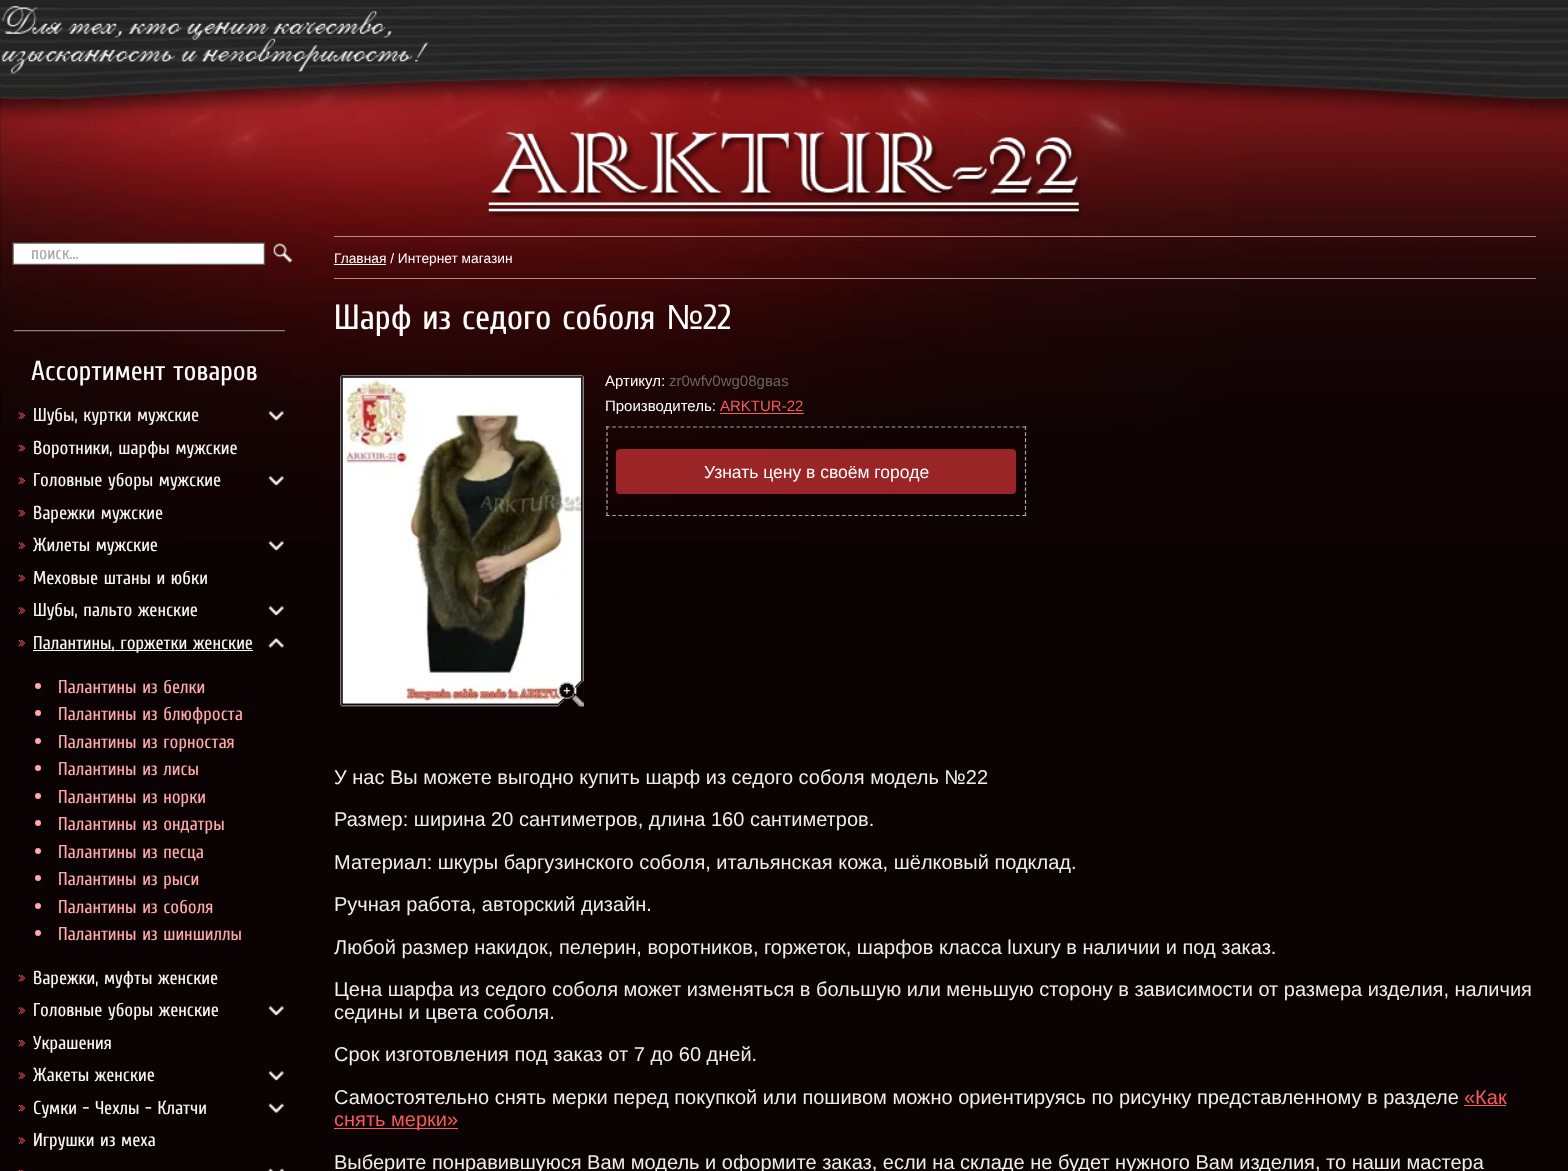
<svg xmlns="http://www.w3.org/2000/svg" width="1568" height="1171">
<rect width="100%" height="100%" fill="#0b0303"/>
<image x="0" y="0" width="1568" height="393" href="media/1.png"/>
<image x="1" y="5" width="1567" height="536" href="media/2.png"/>
<image x="1" y="6" width="428" height="68" href="media/3.png"/>
<image x="488" y="132" width="593" height="86" href="media/4.png"/>
<image x="12" y="242" width="281" height="23" href="media/5.png"/>
<text x="31" y="259" style="font-family:Cuprum;font-size:17.5px;fill:#a8a8a8">поиск...</text>
<image x="13" y="330" width="272" height="2" href="media/6.png"/>
<text x="31" y="380" style="font-family:Cuprum;font-size:27.5px;fill:#fff">Ассортимент товаров</text>
<image x="18" y="412" width="7" height="7" href="media/7.png"/>
<text x="33" y="421" style="font-family:Cuprum;font-size:18.75px;fill:#f6f6f6">Шубы, куртки мужские</text>
<image x="268" y="411" width="16" height="10" href="media/8.png"/>
<image x="18" y="445" width="7" height="7" href="media/9.png"/>
<text x="33" y="454" style="font-family:Cuprum;font-size:18.75px;fill:#f6f6f6">Воротники, шарфы мужские</text>
<image x="18" y="477" width="7" height="7" href="media/10.png"/>
<text x="33" y="486" style="font-family:Cuprum;font-size:18.75px;fill:#f6f6f6">Головные уборы мужские</text>
<image x="268" y="476" width="16" height="10" href="media/11.png"/>
<image x="18" y="510" width="7" height="7" href="media/12.png"/>
<text x="33" y="519" style="font-family:Cuprum;font-size:18.75px;fill:#f6f6f6">Варежки мужские</text>
<image x="18" y="542" width="7" height="7" href="media/13.png"/>
<text x="33" y="551" style="font-family:Cuprum;font-size:18.75px;fill:#f6f6f6">Жилеты мужские</text>
<image x="268" y="541" width="16" height="10" href="media/14.png"/>
<image x="18" y="575" width="7" height="7" href="media/15.png"/>
<text x="33" y="584" style="font-family:Cuprum;font-size:18.75px;fill:#f6f6f6">Меховые штаны и юбки</text>
<image x="18" y="607" width="7" height="7" href="media/13.png"/>
<text x="33" y="616" style="font-family:Cuprum;font-size:18.75px;fill:#f6f6f6">Шубы, пальто женские</text>
<image x="268" y="606" width="16" height="10" href="media/14.png"/>
<image x="18" y="640" width="7" height="7" href="media/15.png"/>
<rect x="33" y="650" width="220" height="1" fill="#f6f6f6"/>
<text x="33" y="649" style="font-family:Cuprum;font-size:18.75px;fill:#f6f6f6">Палантины, горжетки женские</text>
<image x="268" y="638" width="16" height="10" href="media/16.png"/>
<circle cx="38" cy="686" r="3" fill="#ffa9ab"/>
<text x="58" y="693" style="font-family:Cuprum;font-size:18.75px;fill:#ffa9ab">Палантины из белки</text>
<circle cx="38" cy="713" r="3" fill="#ffa9ab"/>
<text x="58" y="720" style="font-family:Cuprum;font-size:18.75px;fill:#ffa9ab">Палантины из блюфроста</text>
<circle cx="38" cy="741" r="3" fill="#ffa9ab"/>
<text x="58" y="748" style="font-family:Cuprum;font-size:18.75px;fill:#ffa9ab">Палантины из горностая</text>
<circle cx="38" cy="768" r="3" fill="#ffa9ab"/>
<text x="58" y="775" style="font-family:Cuprum;font-size:18.75px;fill:#ffa9ab">Палантины из лисы</text>
<circle cx="38" cy="796" r="3" fill="#ffa9ab"/>
<text x="58" y="803" style="font-family:Cuprum;font-size:18.75px;fill:#ffa9ab">Палантины из норки</text>
<circle cx="38" cy="823" r="3" fill="#ffa9ab"/>
<text x="58" y="830" style="font-family:Cuprum;font-size:18.75px;fill:#ffa9ab">Палантины из ондатры</text>
<circle cx="38" cy="851" r="3" fill="#ffa9ab"/>
<text x="58" y="858" style="font-family:Cuprum;font-size:18.75px;fill:#ffa9ab">Палантины из песца</text>
<circle cx="38" cy="878" r="3" fill="#ffa9ab"/>
<text x="58" y="885" style="font-family:Cuprum;font-size:18.75px;fill:#ffa9ab">Палантины из рыси</text>
<circle cx="38" cy="906" r="3" fill="#ffa9ab"/>
<text x="58" y="913" style="font-family:Cuprum;font-size:18.75px;fill:#ffa9ab">Палантины из соболя</text>
<circle cx="38" cy="933" r="3" fill="#ffa9ab"/>
<text x="58" y="940" style="font-family:Cuprum;font-size:18.75px;fill:#ffa9ab">Палантины из шиншиллы</text>
<image x="18" y="975" width="7" height="7" href="media/15.png"/>
<text x="33" y="984" style="font-family:Cuprum;font-size:18.75px;fill:#f6f6f6">Варежки, муфты женские</text>
<image x="18" y="1007" width="7" height="7" href="media/13.png"/>
<text x="33" y="1016" style="font-family:Cuprum;font-size:18.75px;fill:#f6f6f6">Головные уборы женские</text>
<image x="268" y="1006" width="16" height="10" href="media/14.png"/>
<image x="18" y="1040" width="7" height="7" href="media/15.png"/>
<text x="33" y="1049" style="font-family:Cuprum;font-size:18.75px;fill:#f6f6f6">Украшения</text>
<image x="18" y="1072" width="7" height="7" href="media/13.png"/>
<text x="33" y="1081" style="font-family:Cuprum;font-size:18.75px;fill:#f6f6f6">Жакеты женские</text>
<image x="268" y="1071" width="16" height="10" href="media/14.png"/>
<image x="18" y="1105" width="7" height="7" href="media/15.png"/>
<text x="33" y="1114" style="font-family:Cuprum;font-size:18.75px;fill:#f6f6f6">Сумки - Чехлы - Клатчи</text>
<image x="268" y="1103" width="16" height="10" href="media/17.png"/>
<image x="18" y="1137" width="7" height="7" href="media/13.png"/>
<text x="33" y="1146" style="font-family:Cuprum;font-size:18.75px;fill:#f6f6f6">Игрушки из меха</text>
<image x="18" y="1170" width="5" height="1" href="media/18.png"/>
<image x="268" y="1168" width="16" height="3" href="media/19.png"/>
<rect x="334" y="236" width="1202" height="1" fill="#b9898a"/>
<rect x="334" y="278" width="1202" height="1" fill="#b9898a"/>
<rect x="334" y="264" width="52" height="1" fill="#fff"/>
<text x="334" y="263" style="font-family:Liberation Sans;font-size:13.75px;fill:#fff">Главная / Интернет магазин</text>
<text x="334" y="329" style="font-family:Cuprum;font-size:35px;fill:#fff">Шарф из седого соболя</text>
<text x="666" y="329" style="font-family:Liberation Sans;font-size:35px;fill:#fff">№</text>
<text x="703" y="329" style="font-family:Cuprum;font-size:35px;fill:#fff">22</text>
<image x="340" y="375" width="244" height="332" href="media/20.png"/>
<image x="341" y="375" width="243" height="332" href="media/21.png"/>
<text x="605" y="386" style="font-family:Liberation Sans;font-size:15px;fill:#fff">Артикул:</text>
<text x="669" y="386" style="font-family:Liberation Sans;font-size:15px;fill:#666">zr0wfv0wg08gвas</text>
<text x="605" y="411" style="font-family:Liberation Sans;font-size:15px;fill:#fff">Производитель:</text>
<text x="720" y="411" style="font-family:Liberation Sans;font-size:15px;fill:#fc5a5a">ARKTUR-22</text>
<rect x="720" y="413" width="84" height="1" fill="#fc5a5a"/>
<path d="M606 427h420" fill="none" stroke="#a8a8a8" stroke-width="1.2" stroke-dasharray="3.75 2.46"/>
<path d="M1025.5 426v90" fill="none" stroke="#a8a8a8" stroke-width="1.2" stroke-dasharray="3.75 2.41"/>
<path d="M606 515.5h420" fill="none" stroke="#a8a8a8" stroke-width="1.2" stroke-dasharray="3.75 2.46"/>
<path d="M607 426v90" fill="none" stroke="#a8a8a8" stroke-width="1.2" stroke-dasharray="3.75 2.41"/>
<rect x="616" y="449" width="400" height="45" rx="4" fill="#9a2426"/>
<text x="704" y="478" style="font-family:Liberation Sans;font-size:17.5px;fill:#fff">Узнать цену в своём городе</text>
<text x="334" y="784" style="font-family:Liberation Sans;font-size:20px;fill:#eee">У нас Вы можете выгодно купить шарф из седого соболя модель №22</text>
<text x="334" y="826" style="font-family:Liberation Sans;font-size:20px;fill:#eee">Размер: ширина 20 сантиметров, длина 160 сантиметров.</text>
<text x="334" y="869" style="font-family:Liberation Sans;font-size:20px;fill:#eee">Материал: шкуры баргузинского соболя, итальянская кожа, шёлковый подклад.</text>
<text x="334" y="911" style="font-family:Liberation Sans;font-size:20px;fill:#eee">Ручная работа, авторский дизайн.</text>
<text x="334" y="954" style="font-family:Liberation Sans;font-size:20px;fill:#eee">Любой размер накидок, пелерин, воротников, горжеток, шарфов класса luxury в наличии и под заказ.</text>
<text x="334" y="996" style="font-family:Liberation Sans;font-size:20px;fill:#eee">Цена шарфа из седого соболя может изменяться в большую или меньшую сторону в зависимости от размера изделия, наличия</text>
<text x="334" y="1019" style="font-family:Liberation Sans;font-size:20px;fill:#eee">седины и цвета соболя.</text>
<text x="334" y="1061" style="font-family:Liberation Sans;font-size:20px;fill:#eee">Срок изготовления под заказ от 7 до 60 дней.</text>
<text x="334" y="1104" style="font-family:Liberation Sans;font-size:20px;fill:#eee">Самостоятельно снять мерки перед покупкой или пошивом можно ориентируясь по рисунку представленному в разделе</text>
<text x="1464" y="1104" style="font-family:Liberation Sans;font-size:20px;fill:#fc5a5a">«Как</text>
<rect x="1464" y="1105" width="42" height="1" fill="#fc5a5a"/>
<rect x="334" y="1128" width="124" height="1" fill="#fc5a5a"/>
<text x="334" y="1126" style="font-family:Liberation Sans;font-size:20px;fill:#fc5a5a">снять мерки»</text>
<text x="334" y="1169" style="font-family:Liberation Sans;font-size:20px;fill:#eee">Выберите понравившуюся Вам модель и оформите заказ, если на складе не будет нужного Вам изделия, то наши мастера</text>
</svg>
